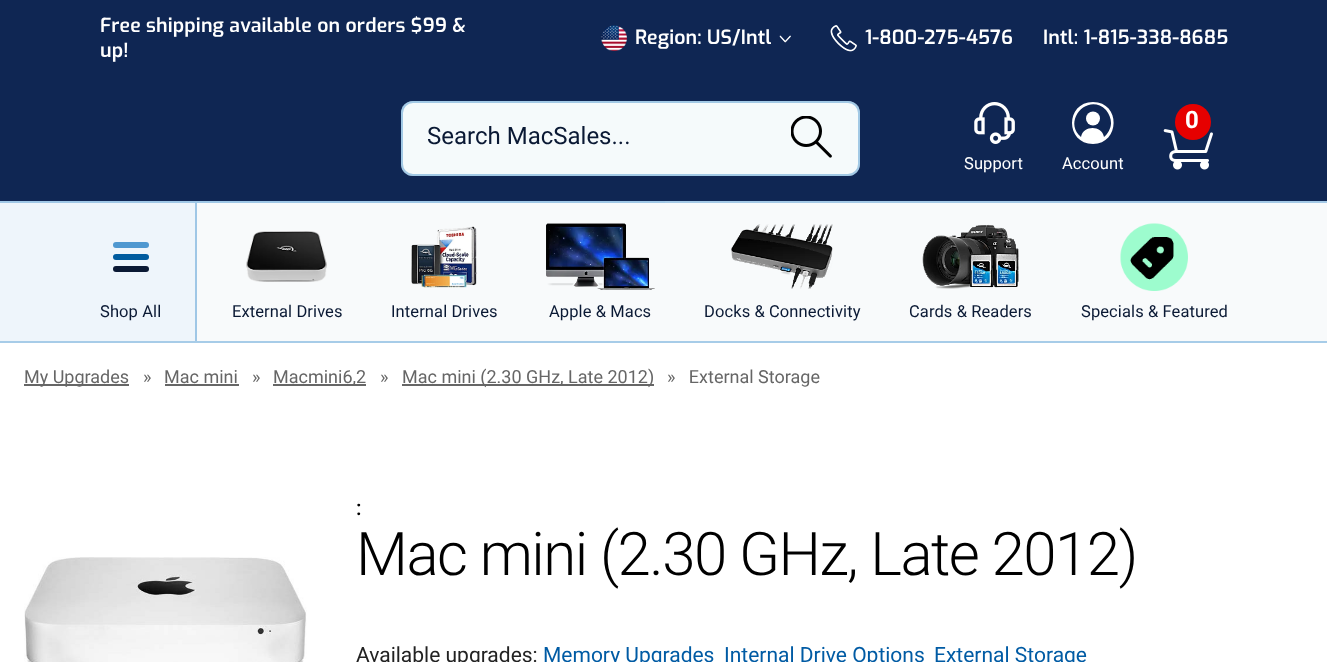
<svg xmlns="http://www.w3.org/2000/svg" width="1327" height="662">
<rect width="100%" height="100%" fill="#fff"/>
<rect width="1327" height="201" fill="#0f2653"/>
<text x="100" y="32" style="font-family:Exo;font-size:19.5px;font-weight:600;letter-spacing:0.15px;fill:#fff">Free shipping available on orders $99 &amp;</text>
<text x="100" y="57" style="font-family:Exo;font-size:19.5px;font-weight:600;letter-spacing:0.15px;fill:#fff">up!</text>
<image x="601" y="25" width="26" height="26" href="media/1.png"/>
<text x="635" y="44" style="font-family:Exo;font-size:19.5px;font-weight:600;letter-spacing:0.15px;fill:#fff">Region:</text>
<text x="707" y="44" style="font-family:Exo;font-size:19.5px;font-weight:600;letter-spacing:0.15px;fill:#fff">US/Intl</text>
<image x="779" y="35" width="12" height="8" href="media/2.png"/>
<image x="830" y="25" width="27" height="27" href="media/3.png"/>
<text x="865" y="44" style="font-family:Exo;font-size:19.5px;font-weight:600;letter-spacing:0.15px;fill:#fff">1-800-275-4576</text>
<text x="1043" y="44" style="font-family:Exo;font-size:19.5px;font-weight:600;letter-spacing:0.15px;fill:#fff">Intl: 1-815-338-8685</text>
<rect y="341" width="1327" height="2" fill="#a7cce8"/>
<rect x="401" y="101" width="459" height="75" rx="12" fill="#f5fafb"/>
<rect x="402" y="102" width="457" height="73" rx="11" fill="none" stroke="#4f98d080" stroke-width="2"/>
<text x="427" y="144" style="font-family:Roboto;font-size:24px;fill:#0a1934">Search MacSales...</text>
<image x="791" y="116" width="41" height="42" href="media/4.png"/>
<circle cx="1193" cy="122" r="18" fill="#e60000"/>
<text x="1185" y="128" style="font-family:Roboto;font-size:24px;font-weight:bold;fill:#fff">0</text>
<image x="1163" y="129" width="50" height="41" href="media/5.png"/>
<image x="974" y="102" width="41" height="42" href="media/6.png"/>
<text x="964" y="169" style="font-family:Roboto;font-size:16.5px;letter-spacing:0.1px;fill:#fff">Support</text>
<circle cx="1093" cy="118.5" r="7" fill="#fff"/>
<path d="M1093 102c-28 0-28 42 0 42c27 0 28-42 0-42zm18 21c0 5-3 11-7 14c-2-12-21-12-23 0c-19-16 7-45 25-27c3 4 5 8 5 13z" fill="#fff"/>
<text x="1062" y="169" style="font-family:Roboto;font-size:16.5px;letter-spacing:0.1px;fill:#fff">Account</text>
<rect y="203" width="195" height="138" fill="#eef5fb"/>
<rect y="201" width="665" height="2" fill="#9fc7e6"/>
<rect x="197" y="203" width="1130" height="138" fill="#f8fafb"/>
<rect x="665" y="201" width="662" height="2" fill="#a4c9e6"/>
<rect x="195" y="203" width="2" height="138" fill="#9fc7e6"/>
<rect x="113" y="242" width="36" height="6" rx="3" fill="#4f98d0"/>
<rect x="113" y="254" width="36" height="6" rx="3" fill="#005c9f"/>
<rect x="113" y="266" width="36" height="6" rx="3" fill="#0a1934"/>
<text x="100" y="317" style="font-family:Roboto;font-size:16.5px;letter-spacing:0.1px;fill:#0a1934">Shop All</text>
<image x="246" y="231" width="81" height="51" href="media/7.png"/>
<text x="232" y="317" style="font-family:Roboto;font-size:16.5px;letter-spacing:0.1px;fill:#0a1934">External Drives</text>
<image x="411" y="226" width="66" height="62" href="media/8.png"/>
<text x="391" y="317" style="font-family:Roboto;font-size:16.5px;letter-spacing:0.1px;fill:#0a1934">Internal Drives</text>
<image x="546" y="223" width="109" height="67" href="media/9.png"/>
<text x="549" y="317" style="font-family:Roboto;font-size:16.5px;letter-spacing:0.1px;fill:#0a1934">Apple &amp; Macs</text>
<image x="731" y="224" width="102" height="65" href="media/10.png"/>
<text x="704" y="317" style="font-family:Roboto;font-size:16.5px;letter-spacing:0.1px;fill:#0a1934">Docks &amp; Connectivity</text>
<image x="922" y="224" width="98" height="65" href="media/11.png"/>
<text x="909" y="317" style="font-family:Roboto;font-size:16.5px;letter-spacing:0.1px;fill:#0a1934">Cards &amp; Readers</text>
<image x="1120" y="223" width="68" height="68" href="media/12.png"/>
<text x="1081" y="317" style="font-family:Roboto;font-size:16.5px;letter-spacing:0.1px;fill:#0a1934">Specials &amp; Featured</text>
<rect x="24" y="384" width="105" height="2" fill="#666"/>
<text x="24" y="383" style="font-family:Roboto;font-size:18px;fill:#666">My Upgrades</text>
<text x="143" y="383" style="font-family:Roboto;font-size:18px;fill:#666">»</text>
<text x="164" y="383" style="font-family:Roboto;font-size:18px;fill:#666">Mac mini</text>
<rect x="165" y="384" width="74" height="2" fill="#666"/>
<text x="252" y="383" style="font-family:Roboto;font-size:18px;fill:#666">»</text>
<rect x="273" y="384" width="93" height="2" fill="#666"/>
<text x="273" y="383" style="font-family:Roboto;font-size:18px;fill:#666">Macmini6,2</text>
<text x="380" y="383" style="font-family:Roboto;font-size:18px;fill:#666">»</text>
<rect x="402" y="384" width="252" height="2" fill="#666"/>
<text x="402" y="383" style="font-family:Roboto;font-size:18px;fill:#666">Mac mini (2.30 GHz, Late 2012)</text>
<text x="667" y="383" style="font-family:Roboto;font-size:18px;fill:#666" xml:space="preserve">»   External Storage</text>
<image x="24" y="557" width="283" height="105" href="media/13.png"/>
<text x="356" y="515" style="font-family:Roboto;font-size:21px;font-weight:500;fill:#000">:</text>
<text x="356" y="575" style="font-family:Roboto;font-size:60px;font-weight:300;letter-spacing:-1.5px;fill:#000">Mac mini (2.30 GHz, Late 2012)</text>
<text x="356" y="662" style="font-family:Roboto;font-size:21px;fill:#222">Available upgrades:</text>
<text x="543" y="662" style="font-family:Roboto;font-size:21px;fill:#005ba4">Memory Upgrades</text>
<text x="724" y="662" style="font-family:Roboto;font-size:21px;fill:#005ba4">Internal Drive Options</text>
<text x="934" y="662" style="font-family:Roboto;font-size:21px;fill:#005ba4">External Storage</text>
</svg>
